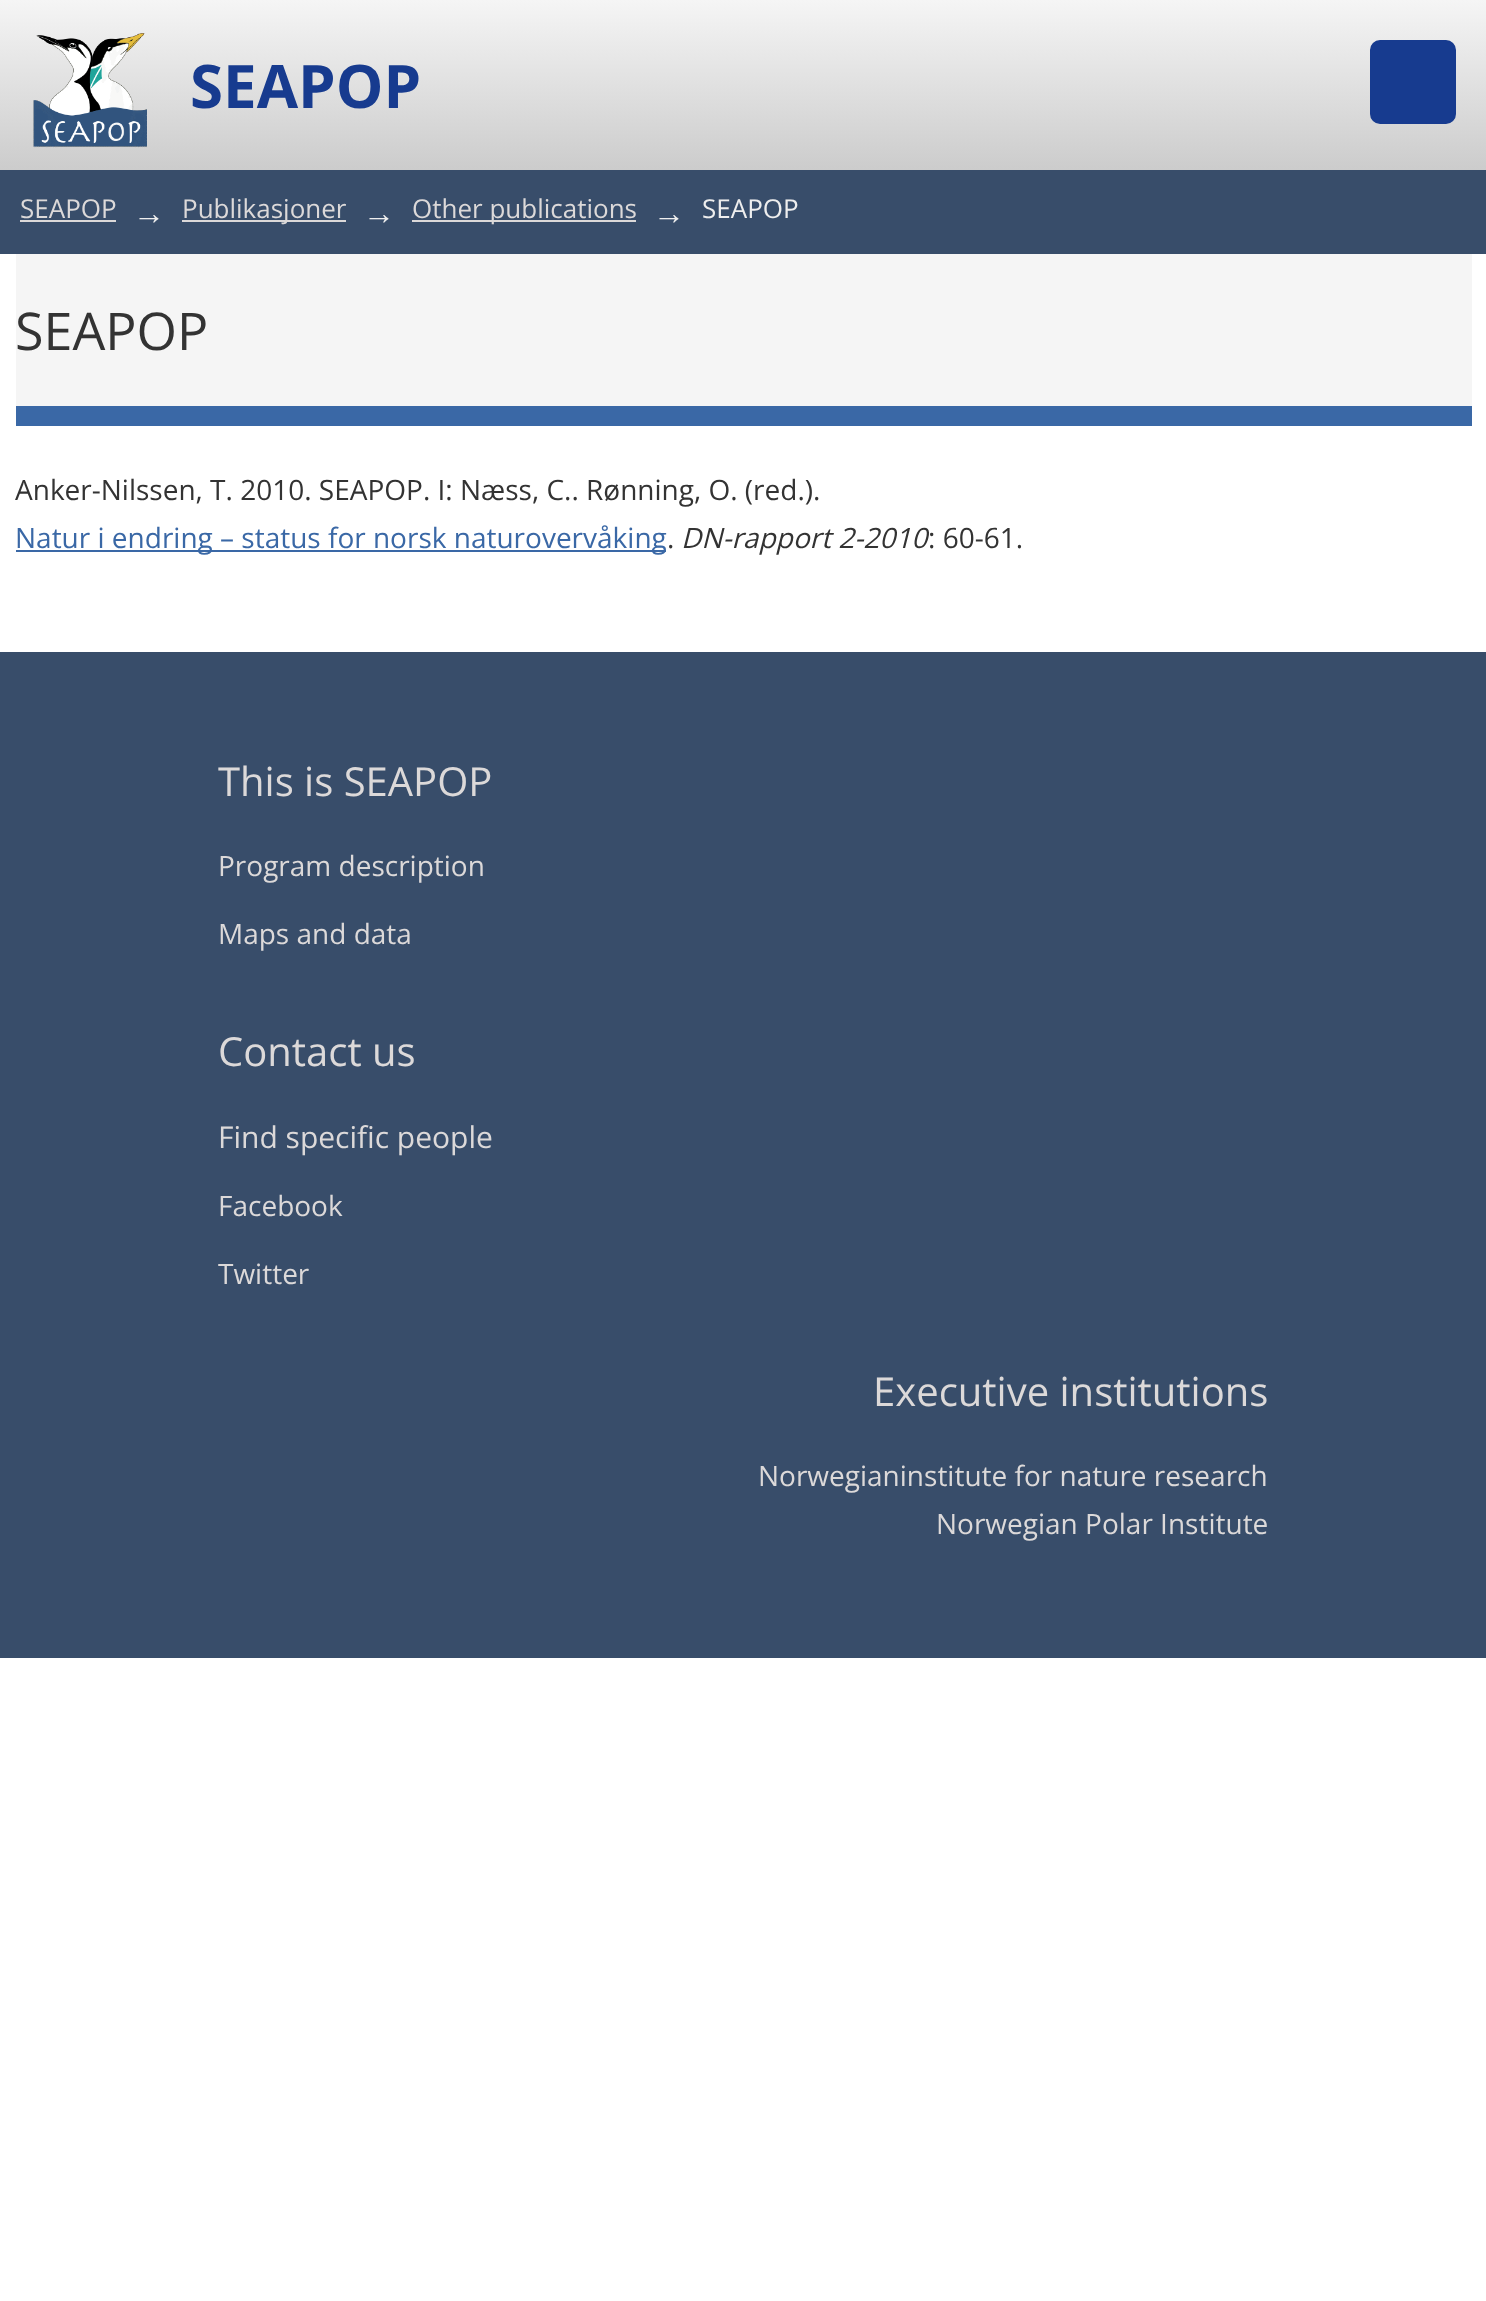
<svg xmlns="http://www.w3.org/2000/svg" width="1486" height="2301">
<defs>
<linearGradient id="g1" gradientUnits="userSpaceOnUse" x1="743" y1="0" x2="743" y2="170"><stop offset="0" stop-color="#f5f5f5"/><stop offset="1" stop-color="#ccc"/></linearGradient>
</defs>
<rect width="100%" height="100%" fill="#fff"/>
<rect width="1486" height="170" fill="url(#g1)"/>
<image x="33" y="33" width="114" height="115" href="media/1.png"/>
<text x="190" y="108" style="font-family:Open Sans;font-size:60px;font-weight:bold;fill:#173b8f">SEAPOP</text>
<rect x="1371" y="41" width="84" height="82" rx="9" fill="#173b8f" stroke="#173b8f" stroke-width="2"/>
<rect y="170" width="1486" height="84" fill="#384d6a"/>
<text x="20" y="218" style="font-family:Open Sans;font-size:26px;fill:#dcd9d9">SEAPOP</text>
<rect x="20" y="220" width="96" height="2" fill="#dcd9d9"/>
<text x="133" y="224" style="font-family:Liberation Sans;font-size:32px;fill:#eee">→</text>
<rect x="182" y="220" width="164" height="2" fill="#dcd9d9"/>
<text x="182" y="218" style="font-family:Open Sans;font-size:26px;fill:#dcd9d9">Publikasjoner</text>
<text x="363" y="224" style="font-family:Liberation Sans;font-size:32px;fill:#eee">→</text>
<rect x="412" y="220" width="224" height="2" fill="#dcd9d9"/>
<text x="412" y="218" style="font-family:Open Sans;font-size:26px;fill:#dcd9d9">Other publications</text>
<text x="653" y="224" style="font-family:Liberation Sans;font-size:32px;fill:#eee">→</text>
<text x="702" y="218" style="font-family:Open Sans;font-size:26px;fill:#eee">SEAPOP</text>
<rect x="16" y="254" width="1456" height="152" fill="#f5f5f5"/>
<rect x="16" y="406" width="1456" height="20" fill="#3a68a6"/>
<text x="15" y="350" style="font-family:Open Sans;font-size:52px;fill:#333">SEAPOP</text>
<text x="15" y="500" style="font-family:Open Sans;font-size:28px;fill:#333">Anker-Nilssen, T. 2010. SEAPOP. I: Næss, C.. Rønning, O. (red.).</text>
<rect x="16" y="550" width="650" height="2" fill="#3a68a6"/>
<text x="15" y="548" style="font-family:Open Sans;font-size:28px;fill:#3a68a6">Natur i endring – status for norsk naturovervåking</text>
<text x="667" y="548" style="font-family:Open Sans;font-size:28px;fill:#333">.</text>
<text x="681" y="548" style="font-family:Open Sans;font-size:28px;font-style:italic;fill:#333">DN-rapport 2-2010</text>
<text x="928" y="548" style="font-family:Open Sans;font-size:28px;fill:#333">: 60-61.</text>
<rect y="652" width="1486" height="1006" fill="#384d6a"/>
<text x="218" y="796" style="font-family:Open Sans;font-size:40px;fill:#dcd9d9">This is SEAPOP</text>
<text x="218" y="876" style="font-family:Open Sans;font-size:28px;fill:#dcd9d9">Program description</text>
<text x="218" y="944" style="font-family:Open Sans;font-size:28px;fill:#dcd9d9">Maps and data</text>
<text x="218" y="1066" style="font-family:Open Sans;font-size:40px;fill:#dcd9d9">Contact us</text>
<text x="218" y="1148" style="font-family:Open Sans;font-size:30px;fill:#dcd9d9">Find specific people</text>
<text x="218" y="1216" style="font-family:Open Sans;font-size:28px;fill:#dcd9d9">Facebook</text>
<text x="218" y="1284" style="font-family:Open Sans;font-size:28px;fill:#dcd9d9">Twitter</text>
<text x="873" y="1406" style="font-family:Open Sans;font-size:40px;fill:#dcd9d9">Executive institutions</text>
<text x="758" y="1486" style="font-family:Open Sans;font-size:28px;fill:#dcd9d9">Norwegianinstitute for nature research</text>
<text x="936" y="1534" style="font-family:Open Sans;font-size:28px;fill:#dcd9d9">Norwegian Polar Institute</text>
</svg>
